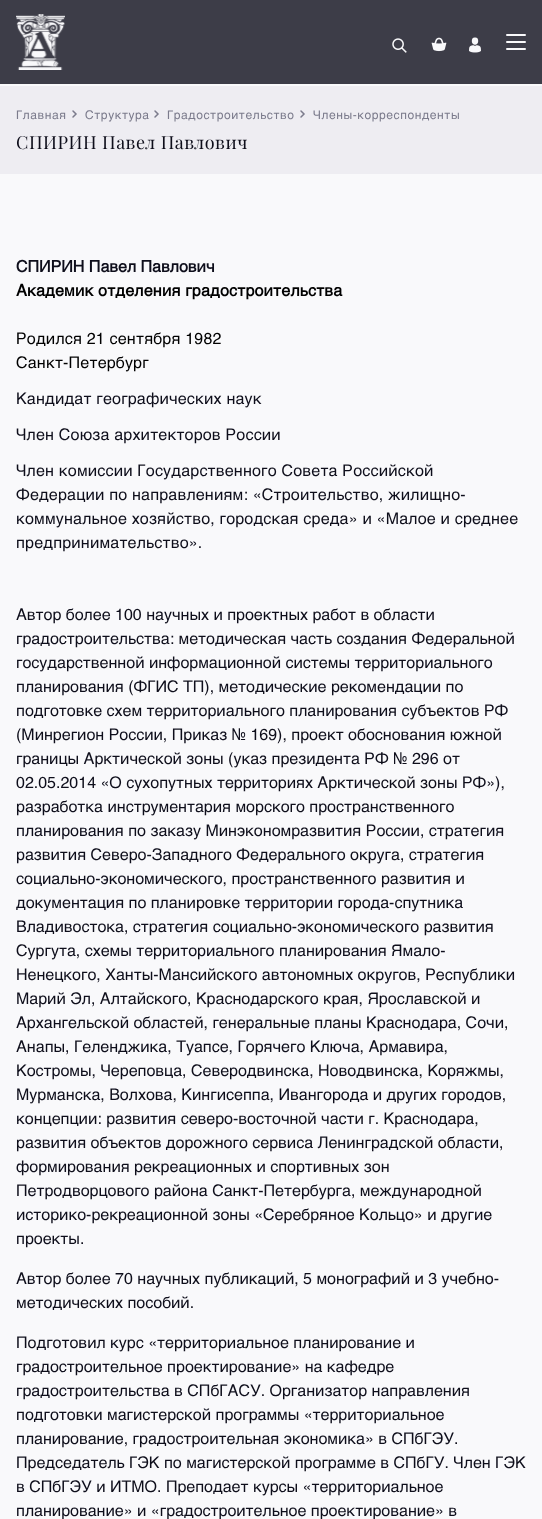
<svg xmlns="http://www.w3.org/2000/svg" width="542" height="1519">
<rect width="100%" height="100%" fill="#f9f9fb"/>
<rect width="542" height="84" fill="#3d3d48"/>
<image x="16" y="14" width="49" height="56" href="media/1.png"/>
<image x="392" y="38" width="15" height="15" href="media/2.png"/>
<image x="431" y="37" width="16" height="15" href="media/3.png"/>
<image x="469" y="37" width="12" height="16" href="media/4.png"/>
<rect x="506" y="34" width="20" height="2" rx="1" fill="#f9f9fb"/>
<rect x="506" y="41" width="20" height="2" rx="1" fill="#f9f9fb"/>
<rect x="506" y="48" width="20" height="2" rx="1" fill="#f9f9fb"/>
<rect y="86" width="542" height="88" fill="#eeedf2"/>
<text x="16" y="119" style="font-family:Helvetica;font-size:12px;letter-spacing:0.6px;fill:#7b7b8c">Главная</text>
<path d="M73 111l3 3l-3 3" fill="none" stroke="#7b7b8c" stroke-width="1.5" stroke-linecap="round"/>
<text x="85" y="119" style="font-family:Helvetica;font-size:12px;letter-spacing:0.6px;fill:#7b7b8c">Структура</text>
<path d="M155 111l3 3l-3 3" fill="none" stroke="#7b7b8c" stroke-width="1.5" stroke-linecap="round"/>
<text x="167" y="119" style="font-family:Helvetica;font-size:12px;letter-spacing:0.6px;fill:#7b7b8c">Градостроительство</text>
<path d="M301 111l3 3l-3 3" fill="none" stroke="#7b7b8c" stroke-width="1.5" stroke-linecap="round"/>
<text x="313" y="119" style="font-family:Helvetica;font-size:12px;letter-spacing:0.6px;fill:#7b7b8c">Члены-корреспонденты</text>
<text x="16" y="149" style="font-family:Playfair Display;font-size:18px;letter-spacing:0.5px;fill:#0e0e1b">СПИРИН Павел Павлович</text>
<text x="16" y="272" style="font-family:Helvetica;font-size:16px;font-weight:bold;fill:#0e0e1b">СПИРИН Павел Павлович</text>
<text x="16" y="296" style="font-family:Helvetica;font-size:16px;font-weight:bold;letter-spacing:0.2px;fill:#000">Академик отделения градостроительства</text>
<text x="16" y="344" style="font-family:Helvetica;font-size:16px;letter-spacing:0.2px;fill:#000">Родился 21 сентября 1982</text>
<text x="16" y="368" style="font-family:Helvetica;font-size:16px;letter-spacing:0.2px;fill:#000">Санкт-Петербург</text>
<text x="16" y="404" style="font-family:Helvetica;font-size:16px;letter-spacing:0.2px;fill:#0e0e1b">Кандидат географических наук</text>
<text x="16" y="440" style="font-family:Helvetica;font-size:16px;letter-spacing:0.2px;fill:#0e0e1b">Член Союза архитекторов России</text>
<text x="16" y="476" style="font-family:Helvetica;font-size:16px;letter-spacing:0.2px;fill:#0e0e1b">Член комиссии Государственного Совета Российской</text>
<text x="16" y="500" style="font-family:Helvetica;font-size:16px;letter-spacing:0.2px;fill:#0e0e1b">Федерации по направлениям: «Строительство, жилищно-</text>
<text x="16" y="524" style="font-family:Helvetica;font-size:16px;letter-spacing:0.2px;fill:#0e0e1b">коммунальное хозяйство, городская среда» и «Малое и среднее</text>
<text x="16" y="548" style="font-family:Helvetica;font-size:16px;letter-spacing:0.2px;fill:#0e0e1b">предпринимательство».</text>
<text x="16" y="620" style="font-family:Helvetica;font-size:16px;fill:#0e0e1b">Автор более 100 научных и проектных работ в области</text>
<text x="16" y="644" style="font-family:Helvetica;font-size:16px;fill:#0e0e1b">градостроительства: методическая часть создания Федеральной</text>
<text x="16" y="668" style="font-family:Helvetica;font-size:16px;fill:#0e0e1b">государственной информационной системы территориального</text>
<text x="16" y="692" style="font-family:Helvetica;font-size:16px;fill:#0e0e1b">планирования (ФГИС ТП), методические рекомендации по</text>
<text x="16" y="716" style="font-family:Helvetica;font-size:16px;fill:#0e0e1b">подготовке схем территориального планирования субъектов РФ</text>
<text x="16" y="740" style="font-family:Helvetica;font-size:16px;fill:#0e0e1b">(Минрегион России, Приказ № 169), проект обоснования южной</text>
<text x="16" y="764" style="font-family:Helvetica;font-size:16px;fill:#0e0e1b">границы Арктической зоны (указ президента РФ № 296 от</text>
<text x="16" y="788" style="font-family:Helvetica;font-size:16px;fill:#0e0e1b">02.05.2014 «О сухопутных территориях Арктической зоны РФ»),</text>
<text x="16" y="812" style="font-family:Helvetica;font-size:16px;fill:#0e0e1b">разработка инструментария морского пространственного</text>
<text x="16" y="836" style="font-family:Helvetica;font-size:16px;fill:#0e0e1b">планирования по заказу Минэкономразвития России, стратегия</text>
<text x="16" y="860" style="font-family:Helvetica;font-size:16px;fill:#0e0e1b">развития Северо-Западного Федерального округа, стратегия</text>
<text x="16" y="884" style="font-family:Helvetica;font-size:16px;fill:#0e0e1b">социально-экономического, пространственного развития и</text>
<text x="16" y="908" style="font-family:Helvetica;font-size:16px;fill:#0e0e1b">документация по планировке территории города-спутника</text>
<text x="16" y="932" style="font-family:Helvetica;font-size:16px;fill:#0e0e1b">Владивостока, стратегия социально-экономического развития</text>
<text x="16" y="956" style="font-family:Helvetica;font-size:16px;fill:#0e0e1b">Сургута, схемы территориального планирования Ямало-</text>
<text x="16" y="980" style="font-family:Helvetica;font-size:16px;fill:#0e0e1b">Ненецкого, Ханты-Мансийского автономных округов, Республики</text>
<text x="16" y="1004" style="font-family:Helvetica;font-size:16px;fill:#0e0e1b">Марий Эл, Алтайского, Краснодарского края, Ярославской и</text>
<text x="16" y="1028" style="font-family:Helvetica;font-size:16px;fill:#0e0e1b">Архангельской областей, генеральные планы Краснодара, Сочи,</text>
<text x="16" y="1052" style="font-family:Helvetica;font-size:16px;fill:#0e0e1b">Анапы, Геленджика, Туапсе, Горячего Ключа, Армавира,</text>
<text x="16" y="1076" style="font-family:Helvetica;font-size:16px;fill:#0e0e1b">Костромы, Череповца, Северодвинска, Новодвинска, Коряжмы,</text>
<text x="16" y="1100" style="font-family:Helvetica;font-size:16px;fill:#0e0e1b">Мурманска, Волхова, Кингисеппа, Ивангорода и других городов,</text>
<text x="16" y="1124" style="font-family:Helvetica;font-size:16px;fill:#0e0e1b">концепции: развития северо-восточной части г. Краснодара,</text>
<text x="16" y="1148" style="font-family:Helvetica;font-size:16px;fill:#0e0e1b">развития объектов дорожного сервиса Ленинградской области,</text>
<text x="16" y="1172" style="font-family:Helvetica;font-size:16px;fill:#0e0e1b">формирования рекреационных и спортивных зон</text>
<text x="16" y="1196" style="font-family:Helvetica;font-size:16px;fill:#0e0e1b">Петродворцового района Санкт-Петербурга, международной</text>
<text x="16" y="1220" style="font-family:Helvetica;font-size:16px;fill:#0e0e1b">историко-рекреационной зоны «Серебряное Кольцо» и другие</text>
<text x="16" y="1244" style="font-family:Helvetica;font-size:16px;fill:#0e0e1b">проекты.</text>
<text x="16" y="1284" style="font-family:Helvetica;font-size:16px;fill:#0e0e1b">Автор более 70 научных публикаций, 5 монографий и 3 учебно-</text>
<text x="16" y="1308" style="font-family:Helvetica;font-size:16px;fill:#0e0e1b">методических пособий.</text>
<text x="16" y="1348" style="font-family:Helvetica;font-size:16px;fill:#0e0e1b">Подготовил курс «территориальное планирование и</text>
<text x="16" y="1372" style="font-family:Helvetica;font-size:16px;fill:#0e0e1b">градостроительное проектирование» на кафедре</text>
<text x="16" y="1396" style="font-family:Helvetica;font-size:16px;fill:#0e0e1b">градостроительства в СПбГАСУ. Организатор направления</text>
<text x="16" y="1420" style="font-family:Helvetica;font-size:16px;fill:#0e0e1b">подготовки магистерской программы «территориальное</text>
<text x="16" y="1444" style="font-family:Helvetica;font-size:16px;fill:#0e0e1b">планирование, градостроительная экономика» в СПбГЭУ.</text>
<text x="16" y="1468" style="font-family:Helvetica;font-size:16px;fill:#0e0e1b">Председатель ГЭК по магистерской программе в СПбГУ. Член ГЭК</text>
<text x="16" y="1492" style="font-family:Helvetica;font-size:16px;fill:#0e0e1b">в СПбГЭУ и ИТМО. Преподает курсы «территориальное</text>
<text x="16" y="1516" style="font-family:Helvetica;font-size:16px;fill:#0e0e1b">планирование» и «градостроительное проектирование» в</text>
</svg>
